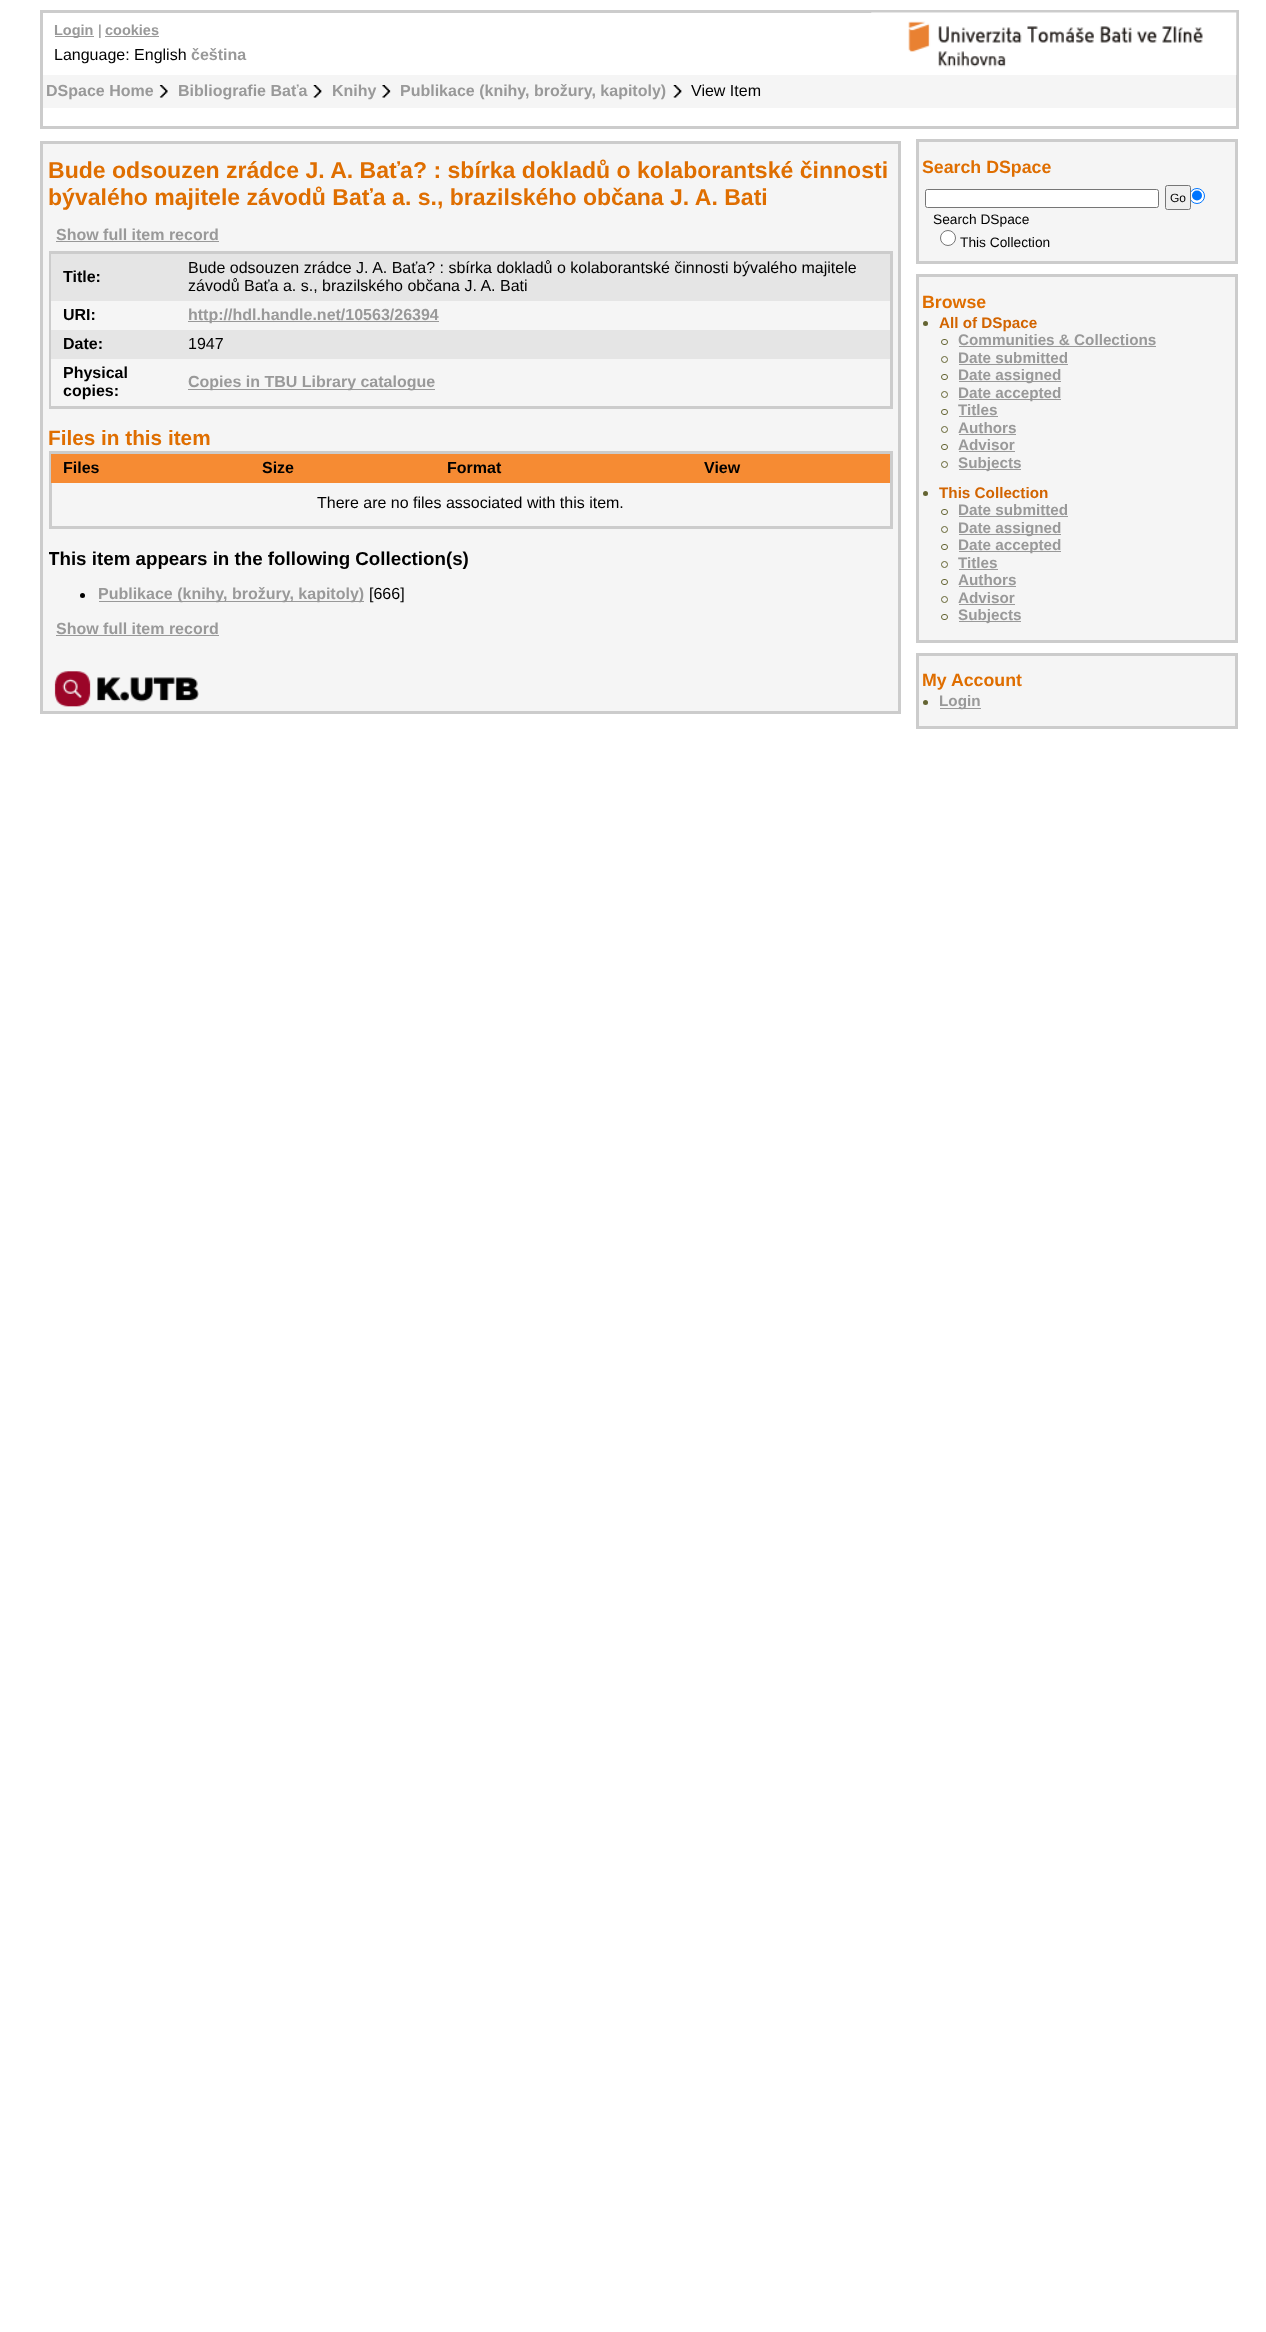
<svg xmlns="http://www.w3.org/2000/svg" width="1266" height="2332">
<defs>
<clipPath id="clip1"><rect x="49" y="218" width="844" height="427"/></clipPath>
</defs>
<rect width="100%" height="100%" fill="#fff"/>
<rect x="41.5" y="11.5" width="1196" height="116" fill="none" stroke="#ccc" stroke-width="3"/>
<rect x="55" y="36" width="39" height="1" fill="#999"/>
<text x="54" y="35" style="font-family:Liberation Sans;font-size:14.5px;font-weight:bold;fill:#999">Login</text>
<text x="98" y="35" style="font-family:Liberation Sans;font-size:14.5px;fill:#808080">|</text>
<text x="105" y="35" style="font-family:Liberation Sans;font-size:14.5px;font-weight:bold;fill:#999">cookies</text>
<rect x="105" y="36" width="54" height="1" fill="#999"/>
<image x="871" y="12" width="366" height="63" href="media/1.png"/>
<text x="54" y="60" style="font-family:Liberation Sans;font-size:16px;fill:#000">Language: English</text>
<text x="191" y="60" style="font-family:Liberation Sans;font-size:16px;font-weight:bold;fill:#999">čeština</text>
<rect x="43" y="75" width="1193" height="33" fill="#f5f5f5"/>
<text x="46" y="96" style="font-family:Liberation Sans;font-size:16px;font-weight:bold;fill:#999">DSpace Home</text>
<image x="159" y="85" width="9" height="13" href="media/2.png"/>
<text x="178" y="96" style="font-family:Liberation Sans;font-size:16px;font-weight:bold;fill:#999">Bibliografie Baťa</text>
<image x="313" y="85" width="9" height="13" href="media/3.png"/>
<text x="332" y="96" style="font-family:Liberation Sans;font-size:16px;font-weight:bold;fill:#999">Knihy</text>
<image x="382" y="85" width="9" height="13" href="media/4.png"/>
<text x="400" y="96" style="font-family:Liberation Sans;font-size:16px;font-weight:bold;fill:#999">Publikace (knihy, brožury, kapitoly)</text>
<image x="673" y="85" width="9" height="13" href="media/3.png"/>
<text x="691" y="96" style="font-family:Liberation Sans;font-size:16px;fill:#000">View Item</text>
<rect x="41.5" y="142.5" width="858" height="570" fill="#f5f5f5" stroke="#ccc" stroke-width="3"/>
<text x="48" y="178" style="font-family:Liberation Sans;font-size:23.05px;font-weight:bold;fill:#df6e00">Bude odsouzen zrádce J. A. Baťa? : sbírka dokladů o kolaborantské činnosti</text>
<text x="48" y="205" style="font-family:Liberation Sans;font-size:23.05px;font-weight:bold;fill:#df6e00">bývalého majitele závodů Baťa a. s., brazilského občana J. A. Bati</text>
<text x="56" y="240" style="font-family:Liberation Sans;font-size:16px;font-weight:bold;fill:#999">Show full item record</text>
<rect x="56" y="241" width="163" height="1" fill="#999"/>
<rect x="50.5" y="252.5" width="841" height="155" fill="none" stroke="#ccc" stroke-width="3"/>
<rect x="51" y="254" width="839" height="47" fill="#e5e5e5"/>
<text x="63" y="282" style="font-family:Liberation Sans;font-size:16px;font-weight:bold;fill:#000">Title:</text>
<text x="188" y="273" style="font-family:Liberation Sans;font-size:16px;fill:#000">Bude odsouzen zrádce J. A. Baťa? : sbírka dokladů o kolaborantské činnosti bývalého majitele</text>
<text x="188" y="291" style="font-family:Liberation Sans;font-size:16px;fill:#000">závodů Baťa a. s., brazilského občana J. A. Bati</text>
<rect x="51" y="301" width="1" height="29" fill="#f5f5f5"/>
<text x="63" y="320" style="font-family:Liberation Sans;font-size:16px;font-weight:bold;fill:#000">URI:</text>
<rect x="188" y="321" width="251" height="1" fill="#999"/>
<text x="188" y="320" style="font-family:Liberation Sans;font-size:16px;font-weight:bold;fill:#999">http://hdl.handle.net/10563/26394</text>
<rect x="51" y="330" width="839" height="29" fill="#e5e5e5"/>
<text x="63" y="349" style="font-family:Liberation Sans;font-size:16px;font-weight:bold;fill:#000">Date:</text>
<text x="188" y="349" style="font-family:Liberation Sans;font-size:16px;fill:#000">1947</text>
<rect x="51" y="359" width="1" height="47" fill="#f5f5f5"/>
<text x="63" y="378" style="font-family:Liberation Sans;font-size:16px;font-weight:bold;fill:#000">Physical</text>
<text x="63" y="396" style="font-family:Liberation Sans;font-size:16px;font-weight:bold;fill:#000">copies:</text>
<rect x="188" y="389" width="247" height="1" fill="#999"/>
<text x="188" y="387" style="font-family:Liberation Sans;font-size:16px;font-weight:bold;fill:#999">Copies in TBU Library catalogue</text>
<text x="48" y="445" style="font-family:Liberation Sans;font-size:20.75px;font-weight:bold;fill:#df6e00">Files in this item</text>
<rect x="50.5" y="452.5" width="841" height="75" fill="none" stroke="#ccc" stroke-width="3"/>
<rect x="51" y="454" width="839" height="29" fill="#f68b33"/>
<text x="63" y="473" style="font-family:Liberation Sans;font-size:16px;font-weight:bold;fill:#000">Files</text>
<text x="262" y="473" style="font-family:Liberation Sans;font-size:16px;font-weight:bold;fill:#000">Size</text>
<text x="447" y="473" style="font-family:Liberation Sans;font-size:16px;font-weight:bold;fill:#000">Format</text>
<text x="704" y="473" style="font-family:Liberation Sans;font-size:16px;font-weight:bold;fill:#000">View</text>
<text x="317" y="508" style="font-family:Liberation Sans;font-size:16px;fill:#000">There are no files associated with this item.</text>
<g clip-path="url(#clip1)">
<text x="48" y="565" style="font-family:Liberation Sans;font-size:18.75px;font-weight:bold;fill:#000">This item appears in the following Collection(s)</text>
</g>
<circle cx="82.5" cy="595.5" r="2.5" fill="#000"/>
<rect x="99" y="601" width="265" height="1" fill="#999"/>
<text x="98" y="599" style="font-family:Liberation Sans;font-size:16px;font-weight:bold;fill:#999">Publikace (knihy, brožury, kapitoly)</text>
<text x="369" y="599" style="font-family:Liberation Sans;font-size:16px;fill:#000">[666]</text>
<text x="56" y="634" style="font-family:Liberation Sans;font-size:16px;font-weight:bold;fill:#999">Show full item record</text>
<rect x="56" y="635" width="163" height="1" fill="#999"/>
<image x="54" y="671" width="145" height="36" href="media/5.png"/>
<rect x="917.5" y="140.5" width="319" height="122" fill="#f5f5f5" stroke="#ccc" stroke-width="3"/>
<text x="922" y="173" style="font-family:Liberation Sans;font-size:17.75px;font-weight:bold;fill:#df6e00">Search DSpace</text>
<rect x="925.5" y="189.5" width="233" height="18" rx="2" fill="#fff" stroke="#767676"/>
<circle cx="1197" cy="196" r="7.5" fill="#fff" stroke="#0075ff"/>
<rect x="1165.5" y="185.5" width="25" height="24" rx="2" fill="#efefef" stroke="#767676"/>
<text x="1170" y="202" style="font-family:Liberation Sans;font-size:12px;fill:#000">Go</text>
<circle cx="1197" cy="195.5" r="5" fill="#0075ff"/>
<text x="933" y="224" style="font-family:Liberation Sans;font-size:13.75px;fill:#000">Search DSpace</text>
<circle cx="948" cy="238" r="7.5" fill="#fff" stroke="#767676"/>
<text x="960" y="247" style="font-family:Liberation Sans;font-size:13.75px;fill:#000">This Collection</text>
<rect x="917.5" y="275.5" width="319" height="366" fill="#f5f5f5" stroke="#ccc" stroke-width="3"/>
<text x="922" y="308" style="font-family:Liberation Sans;font-size:17.75px;font-weight:bold;fill:#df6e00">Browse</text>
<circle cx="925.5" cy="323.5" r="2.5" fill="#646432"/>
<text x="939" y="328" style="font-family:Liberation Sans;font-size:15.25px;font-weight:bold;fill:#d26400">All of DSpace</text>
<rect x="941.5" y="339.5" width="6" height="5" rx="2.5" fill="none" stroke="#646432"/>
<text x="958" y="345" style="font-family:Liberation Sans;font-size:15.25px;font-weight:bold;fill:#999">Communities &amp; Collections</text>
<rect x="959" y="346" width="197" height="1" fill="#999"/>
<circle cx="944.5" cy="359.5" r="3" fill="none" stroke="#646432"/>
<text x="958" y="363" style="font-family:Liberation Sans;font-size:15.25px;font-weight:bold;fill:#999">Date submitted</text>
<rect x="959" y="364" width="109" height="1" fill="#999"/>
<rect x="941.5" y="374.5" width="6" height="5" rx="2.5" fill="none" stroke="#646432"/>
<rect x="959" y="381" width="102" height="1" fill="#999"/>
<text x="958" y="380" style="font-family:Liberation Sans;font-size:15.25px;font-weight:bold;fill:#999">Date assigned</text>
<circle cx="944.5" cy="394.5" r="3" fill="none" stroke="#646432"/>
<rect x="959" y="399" width="102" height="1" fill="#999"/>
<text x="958" y="398" style="font-family:Liberation Sans;font-size:15.25px;font-weight:bold;fill:#999">Date accepted</text>
<rect x="941.5" y="409.5" width="6" height="5" rx="2.5" fill="none" stroke="#646432"/>
<text x="958" y="415" style="font-family:Liberation Sans;font-size:15.25px;font-weight:bold;fill:#999">Titles</text>
<rect x="959" y="416" width="39" height="1" fill="#999"/>
<circle cx="944.5" cy="429.5" r="3" fill="none" stroke="#646432"/>
<text x="958" y="433" style="font-family:Liberation Sans;font-size:15.25px;font-weight:bold;fill:#999">Authors</text>
<rect x="959" y="434" width="57" height="1" fill="#999"/>
<rect x="941.5" y="444.5" width="6" height="5" rx="2.5" fill="none" stroke="#646432"/>
<text x="958" y="450" style="font-family:Liberation Sans;font-size:15.25px;font-weight:bold;fill:#999">Advisor</text>
<rect x="959" y="451" width="56" height="1" fill="#999"/>
<circle cx="944.5" cy="464.5" r="3" fill="none" stroke="#646432"/>
<rect x="959" y="469" width="62" height="1" fill="#999"/>
<text x="958" y="468" style="font-family:Liberation Sans;font-size:15.25px;font-weight:bold;fill:#999">Subjects</text>
<circle cx="925.5" cy="493.5" r="2.5" fill="#646432"/>
<text x="939" y="498" style="font-family:Liberation Sans;font-size:15.25px;font-weight:bold;fill:#d26400">This Collection</text>
<rect x="941.5" y="509.5" width="6" height="5" rx="2.5" fill="none" stroke="#646432"/>
<text x="958" y="515" style="font-family:Liberation Sans;font-size:15.25px;font-weight:bold;fill:#999">Date submitted</text>
<rect x="959" y="516" width="109" height="1" fill="#999"/>
<circle cx="944.5" cy="529.5" r="3" fill="none" stroke="#646432"/>
<rect x="959" y="534" width="102" height="1" fill="#999"/>
<text x="958" y="533" style="font-family:Liberation Sans;font-size:15.25px;font-weight:bold;fill:#999">Date assigned</text>
<rect x="941.5" y="544.5" width="6" height="5" rx="2.5" fill="none" stroke="#646432"/>
<rect x="959" y="551" width="102" height="1" fill="#999"/>
<text x="958" y="550" style="font-family:Liberation Sans;font-size:15.25px;font-weight:bold;fill:#999">Date accepted</text>
<circle cx="944.5" cy="564.5" r="3" fill="none" stroke="#646432"/>
<text x="958" y="568" style="font-family:Liberation Sans;font-size:15.25px;font-weight:bold;fill:#999">Titles</text>
<rect x="959" y="569" width="39" height="1" fill="#999"/>
<rect x="941.5" y="579.5" width="6" height="5" rx="2.5" fill="none" stroke="#646432"/>
<text x="958" y="585" style="font-family:Liberation Sans;font-size:15.25px;font-weight:bold;fill:#999">Authors</text>
<rect x="959" y="586" width="57" height="1" fill="#999"/>
<circle cx="944.5" cy="599.5" r="3" fill="none" stroke="#646432"/>
<text x="958" y="603" style="font-family:Liberation Sans;font-size:15.25px;font-weight:bold;fill:#999">Advisor</text>
<rect x="959" y="604" width="56" height="1" fill="#999"/>
<rect x="941.5" y="614.5" width="6" height="5" rx="2.5" fill="none" stroke="#646432"/>
<rect x="959" y="621" width="62" height="1" fill="#999"/>
<text x="958" y="620" style="font-family:Liberation Sans;font-size:15.25px;font-weight:bold;fill:#999">Subjects</text>
<rect x="917.5" y="654.5" width="319" height="73" fill="#f5f5f5" stroke="#ccc" stroke-width="3"/>
<text x="922" y="686" style="font-family:Liberation Sans;font-size:17.75px;font-weight:bold;fill:#df6e00">My Account</text>
<circle cx="925.5" cy="702.5" r="2.5" fill="#646432"/>
<rect x="940" y="708" width="41" height="1" fill="#999"/>
<text x="939" y="706" style="font-family:Liberation Sans;font-size:15.25px;font-weight:bold;fill:#999">Login</text>
</svg>
